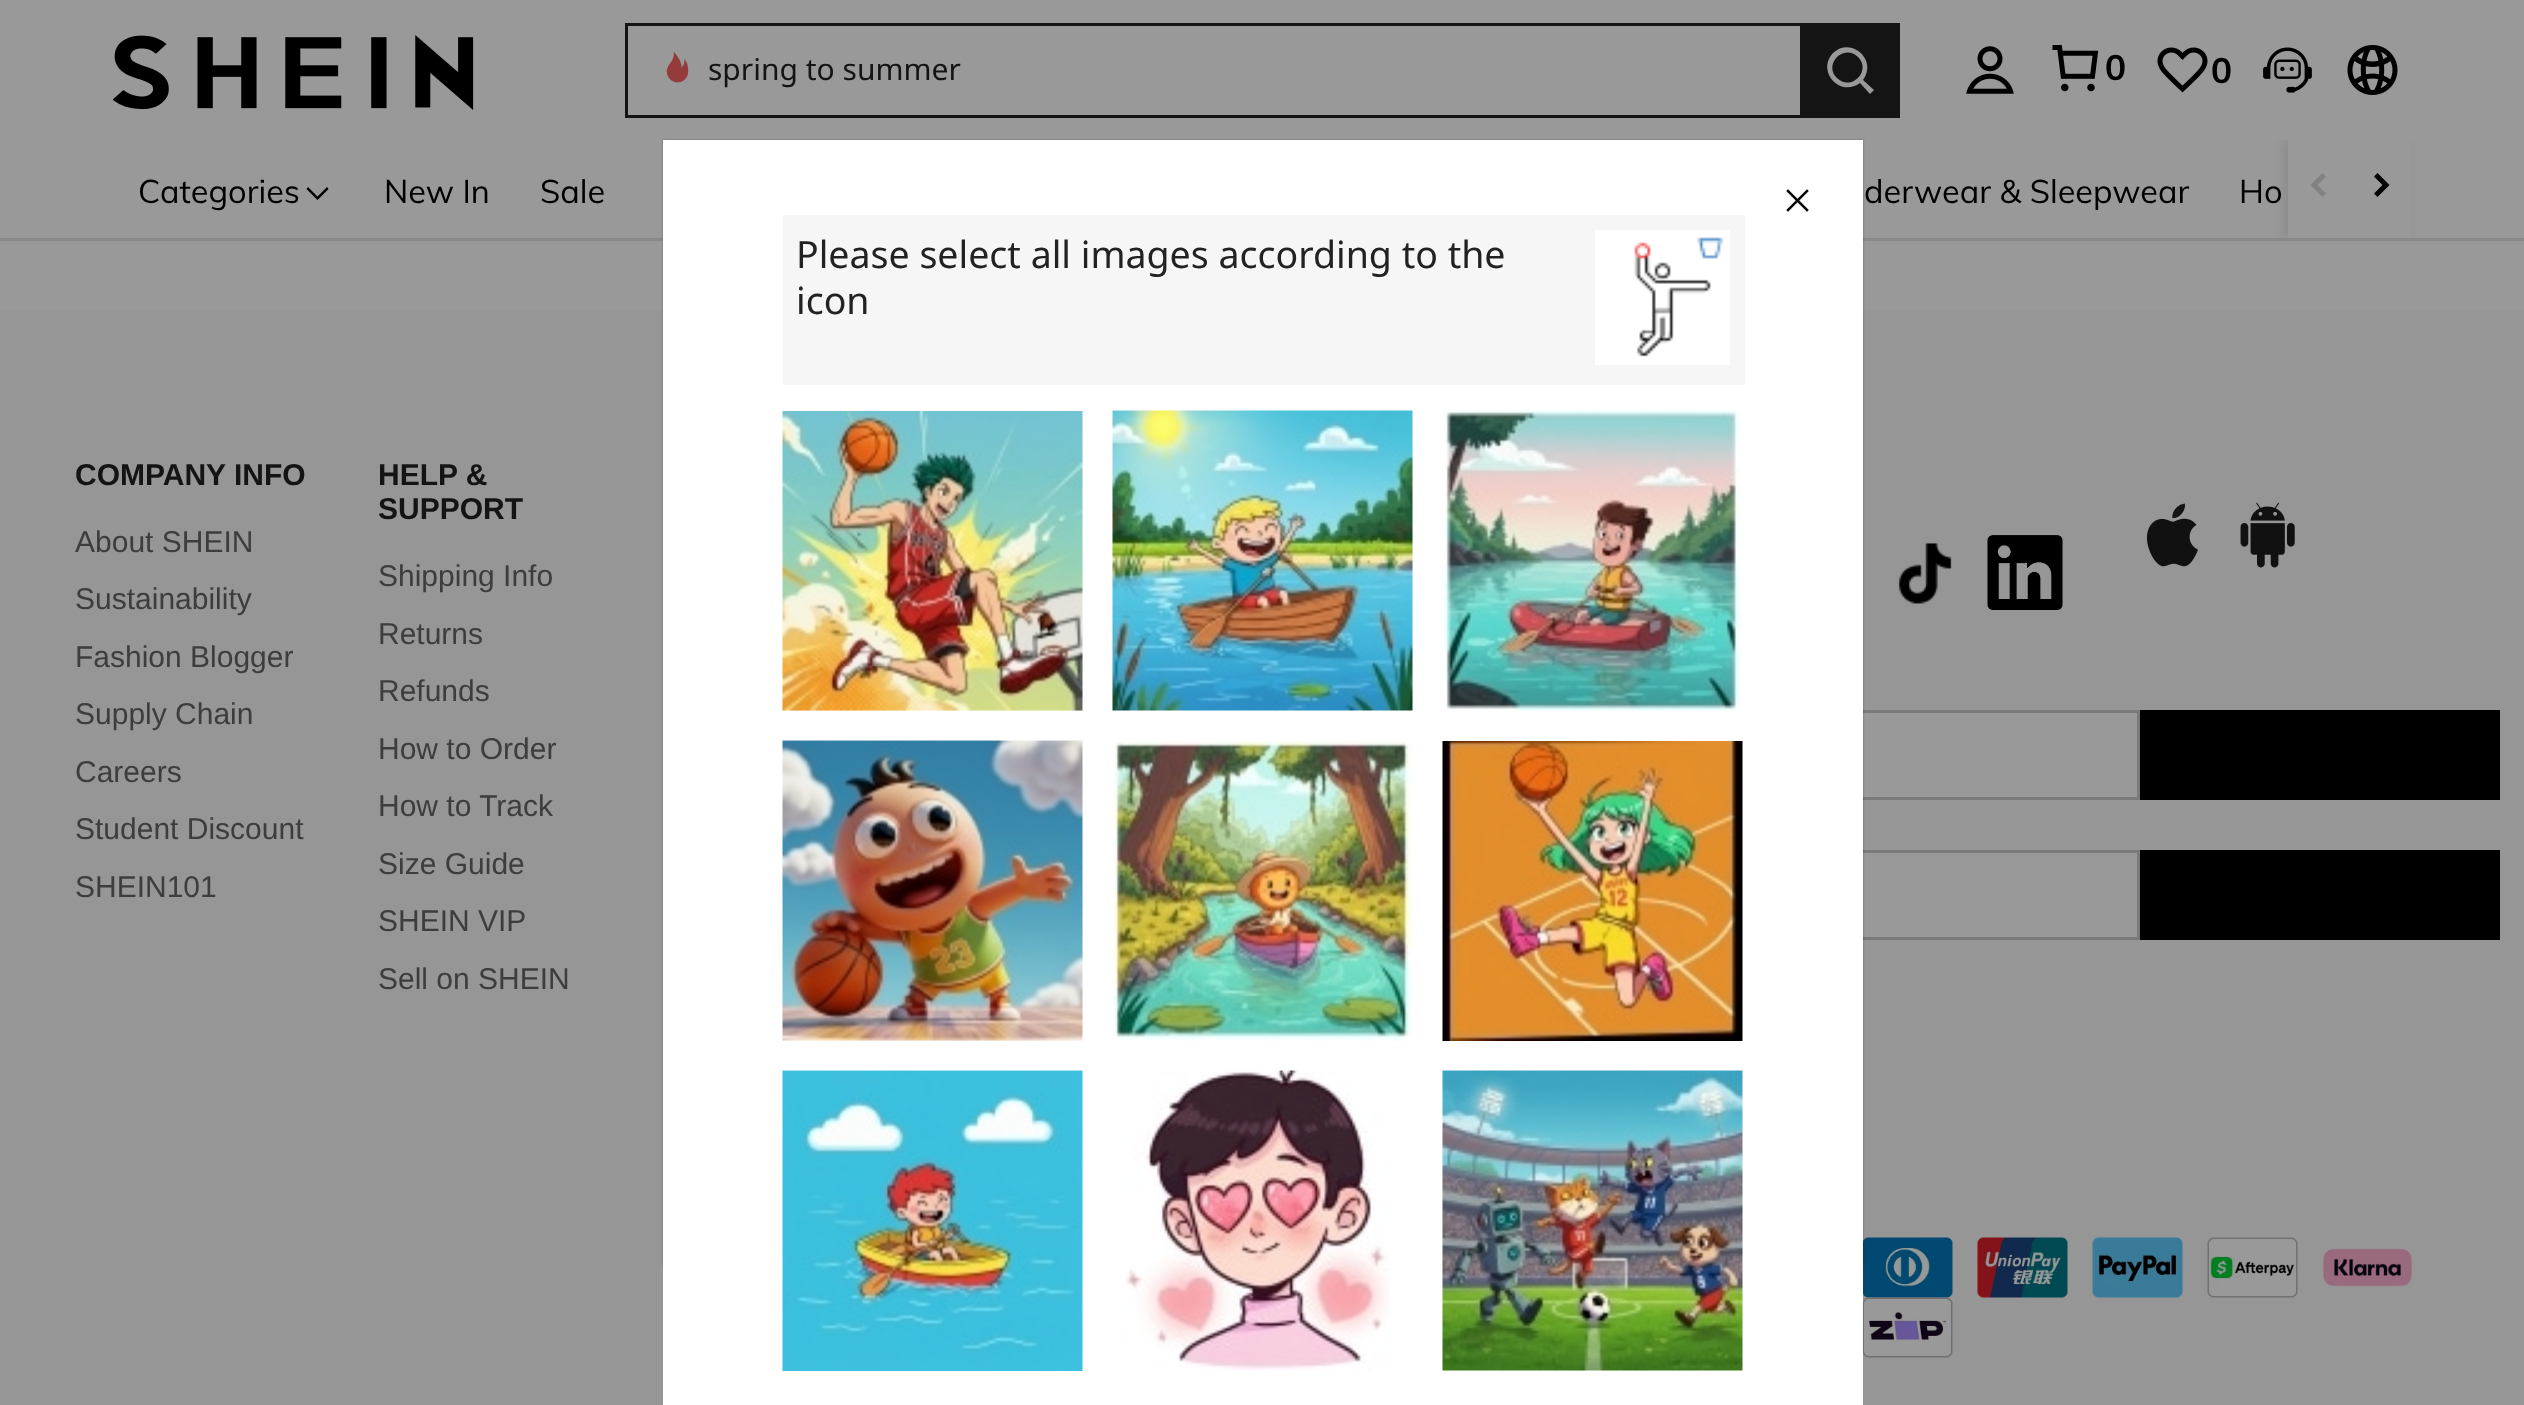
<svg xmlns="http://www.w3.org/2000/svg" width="2524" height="1405">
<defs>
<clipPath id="clip1"><rect x="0" y="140" width="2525" height="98"/></clipPath>
</defs>
<rect width="100%" height="100%" fill="#999"/>
<image x="113" y="35" width="361" height="75" href="media/1.png"/>
<rect x="625" y="23" width="1175" height="3" fill="#141414"/>
<rect x="625" y="115" width="1175" height="3" fill="#141414"/>
<rect x="625" y="23" width="3" height="95" fill="#141414"/>
<image x="666" y="52" width="23" height="31" href="media/2.png"/>
<text x="708" y="80" style="font-family:Noto Sans;font-size:30px;fill:#141414">spring to summer</text>
<rect x="1800" y="23" width="100" height="95" fill="#141414"/>
<path d="M1833 53c18-17 45 7 30 27l11 10l-4 4l-10-11c-20 15-44-12-27-30zm25 4c-14-14-35 7-21 21c14 14 35-7 21-21z" fill="#999" fill-rule="evenodd"/>
<image x="1966" y="46" width="48" height="48" href="media/3.png"/>
<image x="2052" y="45" width="47" height="47" href="media/4.png"/>
<text x="2105" y="80" style="font-family:Muli;font-size:35px;font-weight:bold;fill:#000">0</text>
<image x="2157" y="47" width="51" height="46" href="media/5.png"/>
<text x="2211" y="83" style="font-family:Muli;font-size:35px;font-weight:bold;fill:#000">0</text>
<image x="2263" y="47" width="49" height="46" href="media/6.png"/>
<image x="2347" y="45" width="51" height="50" href="media/7.png"/>
<rect y="238" width="2524" height="3" fill="#898989"/>
<text x="138" y="203" style="font-family:Muli;font-size:32.5px;fill:#000">Categories</text>
<path d="M327 187l1.5 2l-11 11l-11-11l1.5-2l9.5 9.5z" fill="#000"/>
<text x="384" y="203" style="font-family:Muli;font-size:32.5px;fill:#000">New In</text>
<text x="540" y="203" style="font-family:Muli;font-size:32.5px;fill:#000">Sale</text>
<text x="1864" y="203" style="font-family:Muli;font-size:32.5px;fill:#000">derwear &amp; Sleepwear</text>
<text x="2239" y="203" style="font-family:Muli;font-size:32.5px;fill:#000">Ho</text>
<g clip-path="url(#clip1)">
<rect x="2283" y="140" width="125" height="98" fill="#00000014" filter="blur(4px)"/>
</g>
<rect x="2288" y="140" width="123" height="98" fill="#999"/>
<path d="M2322.5 173l3.5 3.5l-8.5 8.5l8.5 8.5l-3.5 3.5l-12-12z" fill="#828282" fill-rule="evenodd"/>
<path d="M2374 176.5l3.5-3.5l12 12l-12 12l-3.5-3.5l8.5-8.5z" fill="#000" fill-rule="evenodd"/>
<rect y="310" width="2524" height="1095" fill="#969696"/>
<text x="75" y="485" style="font-family:Liberation Sans;font-size:30px;font-weight:bold;fill:#141414">COMPANY INFO</text>
<text x="75" y="552" style="font-family:Liberation Sans;font-size:30px;fill:#3d3d3d">About SHEIN</text>
<text x="75" y="609" style="font-family:Liberation Sans;font-size:30px;fill:#3d3d3d">Sustainability</text>
<text x="75" y="667" style="font-family:Liberation Sans;font-size:30px;fill:#3d3d3d">Fashion Blogger</text>
<text x="75" y="724" style="font-family:Liberation Sans;font-size:30px;fill:#3d3d3d">Supply Chain</text>
<text x="75" y="782" style="font-family:Liberation Sans;font-size:30px;fill:#3d3d3d">Careers</text>
<text x="75" y="839" style="font-family:Liberation Sans;font-size:30px;fill:#3d3d3d">Student Discount</text>
<text x="75" y="897" style="font-family:Liberation Sans;font-size:30px;fill:#3d3d3d">SHEIN101</text>
<text x="378" y="485" style="font-family:Liberation Sans;font-size:30px;font-weight:bold;fill:#141414">HELP &amp;</text>
<text x="378" y="519" style="font-family:Liberation Sans;font-size:30px;font-weight:bold;fill:#141414">SUPPORT</text>
<text x="378" y="586" style="font-family:Liberation Sans;font-size:30px;fill:#3d3d3d">Shipping Info</text>
<text x="378" y="644" style="font-family:Liberation Sans;font-size:30px;fill:#3d3d3d">Returns</text>
<text x="378" y="701" style="font-family:Liberation Sans;font-size:30px;fill:#3d3d3d">Refunds</text>
<text x="378" y="759" style="font-family:Liberation Sans;font-size:30px;fill:#3d3d3d">How to Order</text>
<text x="378" y="816" style="font-family:Liberation Sans;font-size:30px;fill:#3d3d3d">How to Track</text>
<text x="378" y="874" style="font-family:Liberation Sans;font-size:30px;fill:#3d3d3d">Size Guide</text>
<text x="378" y="931" style="font-family:Liberation Sans;font-size:30px;fill:#3d3d3d">SHEIN VIP</text>
<text x="378" y="989" style="font-family:Liberation Sans;font-size:30px;fill:#3d3d3d">Sell on SHEIN</text>
<image x="1898" y="543" width="54" height="61" href="media/8.png"/>
<image x="1987" y="535" width="76" height="75" href="media/9.png"/>
<image x="2146" y="503" width="52" height="64" href="media/10.png"/>
<image x="2240" y="502" width="55" height="66" href="media/11.png"/>
<rect x="1863" y="713" width="274" height="84" fill="#999"/>
<rect x="1289.5" y="711.5" width="849" height="87" fill="none" stroke="#7a7a7a" stroke-width="3"/>
<rect x="2140" y="710" width="360" height="90" fill="#000"/>
<rect x="1863" y="853" width="274" height="84" fill="#999"/>
<rect x="1489.5" y="851.5" width="649" height="87" fill="none" stroke="#7a7a7a" stroke-width="3"/>
<rect x="2140" y="850" width="360" height="90" fill="#000"/>
<image x="1863" y="1237" width="90" height="61" href="media/12.png"/>
<image x="1977" y="1237" width="91" height="61" href="media/13.png"/>
<image x="2092" y="1237" width="91" height="61" href="media/14.png"/>
<image x="2207" y="1237" width="91" height="61" href="media/15.png"/>
<image x="2323" y="1248" width="89" height="39" href="media/16.png"/>
<image x="1863" y="1297" width="90" height="61" href="media/17.png"/>
<rect x="663" y="140" width="1200" height="1125" fill="#0000004d" filter="blur(1px)"/>
<rect x="663" y="140" width="1200" height="1265" fill="#fff"/>
<image x="1786" y="189" width="23" height="23" href="media/18.png"/>
<rect x="783" y="215" width="962" height="170" fill="#f6f6f6"/>
<text x="796" y="268" style="font-family:Noto Sans;font-size:37.5px;fill:#222">Please select all images according to the</text>
<text x="796" y="314" style="font-family:Noto Sans;font-size:37.5px;fill:#222">icon</text>
<rect x="1595" y="230" width="135" height="135" fill="#fff"/>
<image x="1634" y="237" width="90" height="120" href="media/19.png"/>
<image x="782" y="411" width="301" height="300" href="media/20.png"/>
<image x="1112" y="410" width="301" height="301" href="media/21.png"/>
<image x="1442" y="410" width="300" height="301" href="media/22.png"/>
<image x="782" y="740" width="301" height="301" href="media/23.png"/>
<image x="1112" y="741" width="301" height="300" href="media/24.png"/>
<image x="1442" y="741" width="301" height="300" href="media/25.png"/>
<image x="782" y="1070" width="301" height="301" href="media/26.png"/>
<image x="1125" y="1070" width="265" height="301" href="media/27.png"/>
<image x="1442" y="1070" width="301" height="301" href="media/28.png"/>
</svg>
